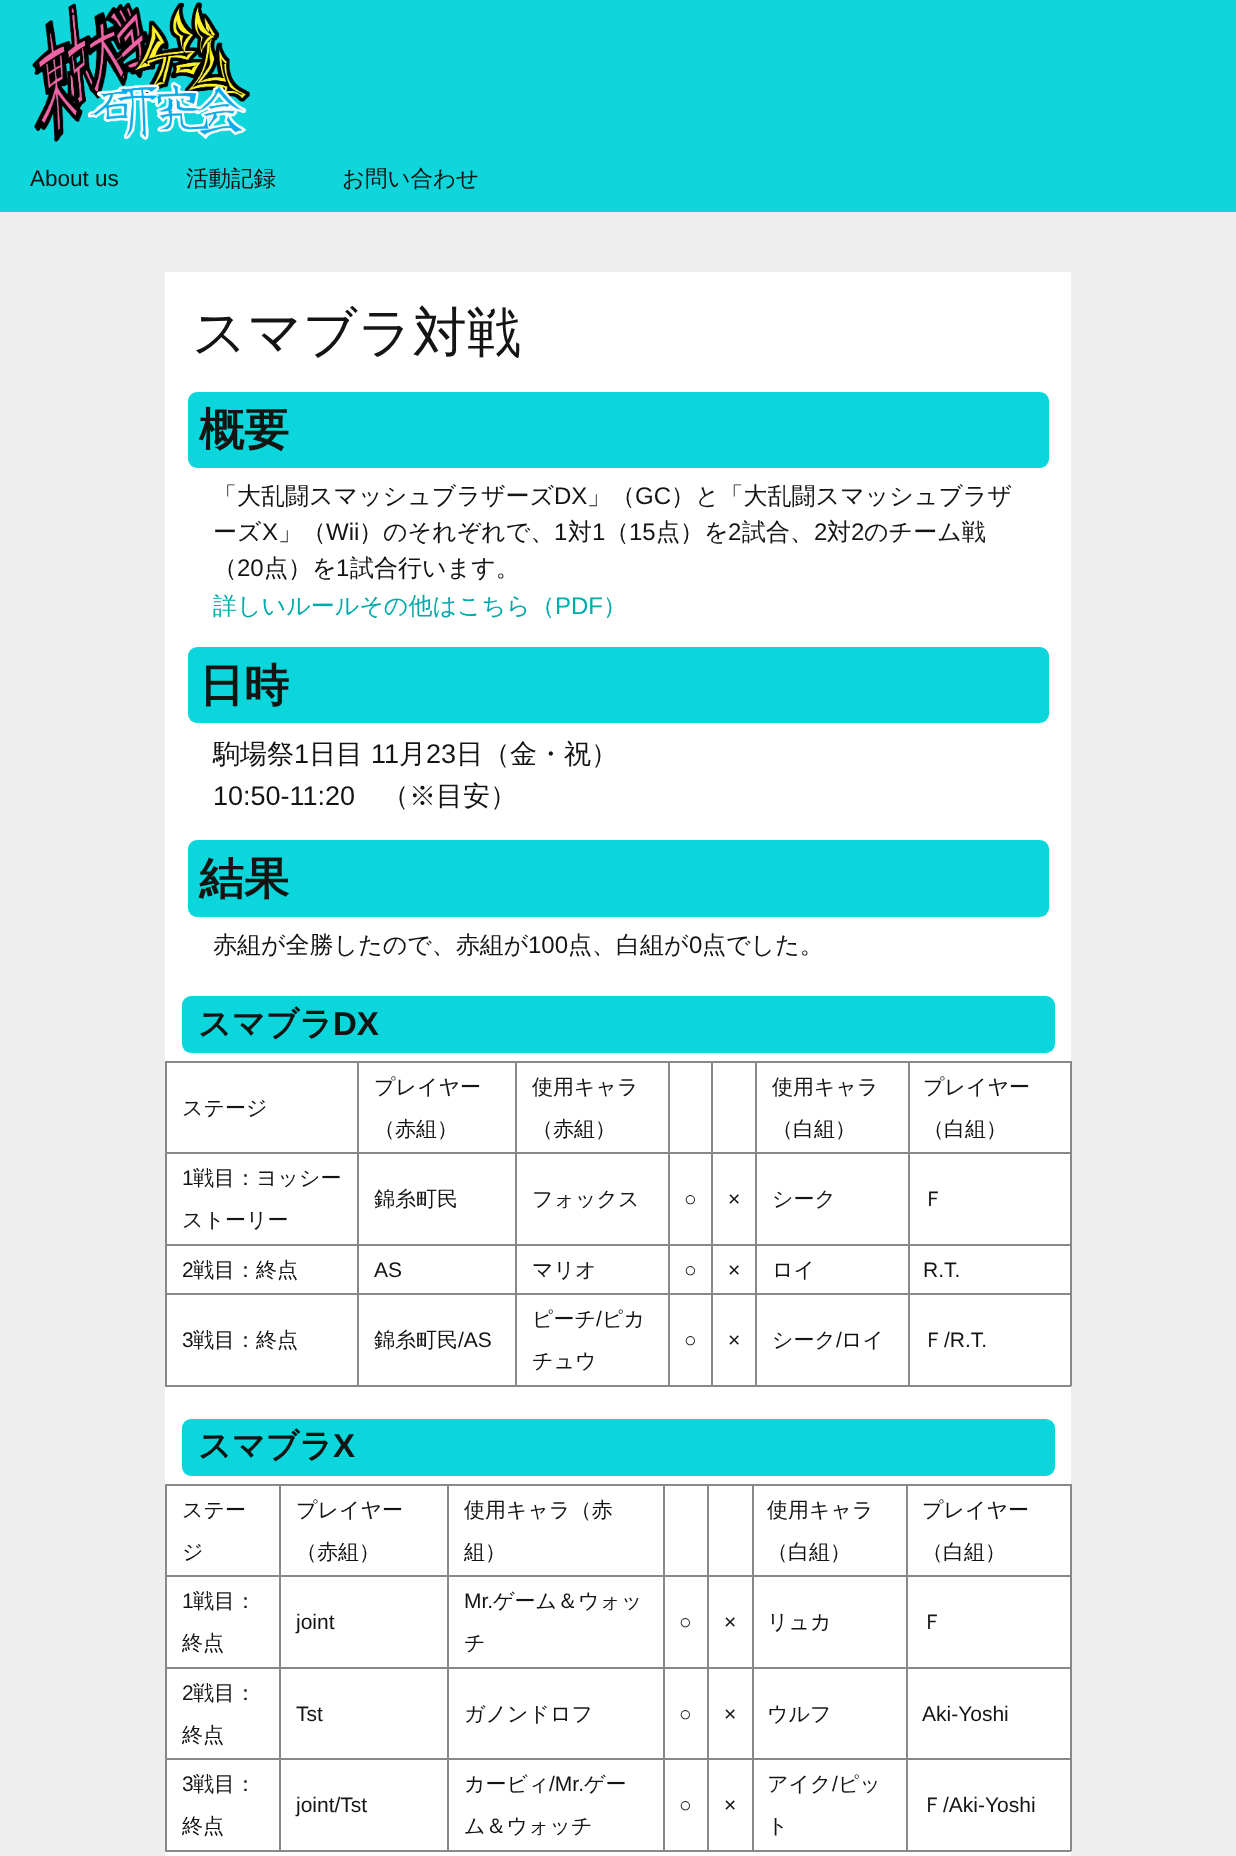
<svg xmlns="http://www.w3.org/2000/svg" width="1236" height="1856">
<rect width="100%" height="100%" fill="#eee"/>
<rect width="1236" height="212" fill="#10d6dc"/>
<image x="32" y="2" width="218" height="140" href="media/1.png"/>
<text x="30" y="186" style="font-family:Liberation Sans;font-size:22.5px;fill:#141412">About us</text>
<text x="186" y="186" style="font-family:WenQuanYi Zen Hei;font-size:22.5px;font-weight:500;fill:#141412">活動記録</text>
<text x="342" y="186" style="font-family:WenQuanYi Zen Hei;font-size:22.5px;font-weight:500;fill:#141412">お問い合わせ</text>
<rect x="165" y="272" width="906" height="1584" fill="#fff"/>
<text x="192" y="351" style="font-family:WenQuanYi Zen Hei;font-size:54px;font-weight:500;fill:#141412">スマブラ対戦</text>
<rect x="188" y="392" width="861" height="76" rx="9" fill="#0ad6dc"/>
<text x="199" y="445" style="font-family:WenQuanYi Zen Hei;font-size:45px;font-weight:bold;fill:#141412">概要</text>
<text x="213" y="504" style="font-family:WenQuanYi Zen Hei;font-size:24px;font-weight:500;fill:#141412">「大乱闘スマッシュブラザーズ</text>
<text x="554" y="504" style="font-family:Liberation Sans;font-size:24px;fill:#141412">DX</text>
<text x="587" y="504" style="font-family:WenQuanYi Zen Hei;font-size:24px;font-weight:500;fill:#141412">」（</text>
<text x="635" y="504" style="font-family:Liberation Sans;font-size:24px;fill:#141412">GC</text>
<text x="671" y="504" style="font-family:WenQuanYi Zen Hei;font-size:24px;font-weight:500;fill:#141412">）と「大乱闘スマッシュブラザ</text>
<text x="213" y="540" style="font-family:WenQuanYi Zen Hei;font-size:24px;font-weight:500;fill:#141412">ーズ</text>
<text x="262" y="540" style="font-family:Liberation Sans;font-size:24px;fill:#141412">X</text>
<text x="278" y="540" style="font-family:WenQuanYi Zen Hei;font-size:24px;font-weight:500;fill:#141412">」（</text>
<text x="326" y="540" style="font-family:Liberation Sans;font-size:24px;fill:#141412">Wii</text>
<text x="359" y="540" style="font-family:WenQuanYi Zen Hei;font-size:24px;font-weight:500;fill:#141412">）のそれぞれで、</text>
<text x="554" y="540" style="font-family:Liberation Sans;font-size:24px;fill:#141412">1</text>
<text x="568" y="540" style="font-family:WenQuanYi Zen Hei;font-size:24px;font-weight:500;fill:#141412">対</text>
<text x="592" y="540" style="font-family:Liberation Sans;font-size:24px;fill:#141412">1</text>
<text x="605" y="540" style="font-family:WenQuanYi Zen Hei;font-size:24px;font-weight:500;fill:#141412">（</text>
<text x="629" y="540" style="font-family:Liberation Sans;font-size:24px;fill:#141412">15</text>
<text x="656" y="540" style="font-family:WenQuanYi Zen Hei;font-size:24px;font-weight:500;fill:#141412">点）を</text>
<text x="728" y="540" style="font-family:Liberation Sans;font-size:24px;fill:#141412">2</text>
<text x="742" y="540" style="font-family:WenQuanYi Zen Hei;font-size:24px;font-weight:500;fill:#141412">試合、</text>
<text x="814" y="540" style="font-family:Liberation Sans;font-size:24px;fill:#141412">2</text>
<text x="827" y="540" style="font-family:WenQuanYi Zen Hei;font-size:24px;font-weight:500;fill:#141412">対</text>
<text x="851" y="540" style="font-family:Liberation Sans;font-size:24px;fill:#141412">2</text>
<text x="864" y="540" style="font-family:WenQuanYi Zen Hei;font-size:24px;font-weight:500;fill:#141412">のチーム戦</text>
<text x="213" y="576" style="font-family:WenQuanYi Zen Hei;font-size:24px;font-weight:500;fill:#141412">（</text>
<text x="237" y="576" style="font-family:Liberation Sans;font-size:24px;fill:#141412">20</text>
<text x="264" y="576" style="font-family:WenQuanYi Zen Hei;font-size:24px;font-weight:500;fill:#141412">点）を</text>
<text x="336" y="576" style="font-family:Liberation Sans;font-size:24px;fill:#141412">1</text>
<text x="350" y="576" style="font-family:WenQuanYi Zen Hei;font-size:24px;font-weight:500;fill:#141412">試合行います。</text>
<text x="213" y="614" style="font-family:WenQuanYi Zen Hei;font-size:24px;font-weight:500;fill:#0aa">詳しいルールその他はこちら（</text>
<text x="555" y="614" style="font-family:Liberation Sans;font-size:24px;fill:#0aa">PDF</text>
<text x="603" y="614" style="font-family:WenQuanYi Zen Hei;font-size:24px;font-weight:500;fill:#0aa">）</text>
<rect x="188" y="647" width="861" height="76" rx="9" fill="#0ad6dc"/>
<text x="199" y="701" style="font-family:WenQuanYi Zen Hei;font-size:45px;font-weight:bold;fill:#141412">日時</text>
<text x="213" y="763" style="font-family:WenQuanYi Zen Hei;font-size:27px;font-weight:500;fill:#141412">駒場祭</text>
<text x="294" y="763" style="font-family:Liberation Sans;font-size:27px;fill:#141412">1</text>
<text x="309" y="763" style="font-family:WenQuanYi Zen Hei;font-size:27px;font-weight:500;fill:#141412">日目</text>
<text x="371" y="763" style="font-family:Liberation Sans;font-size:27px;fill:#141412">11</text>
<text x="399" y="763" style="font-family:WenQuanYi Zen Hei;font-size:27px;font-weight:500;fill:#141412">月</text>
<text x="426" y="763" style="font-family:Liberation Sans;font-size:27px;fill:#141412">23</text>
<text x="456" y="763" style="font-family:WenQuanYi Zen Hei;font-size:27px;font-weight:500;fill:#141412">日（金・祝）</text>
<text x="213" y="805" style="font-family:Liberation Sans;font-size:27px;fill:#141412">10:50-11:20</text>
<text x="382" y="805" style="font-family:WenQuanYi Zen Hei;font-size:27px;font-weight:500;fill:#141412">（※目安）</text>
<rect x="188" y="840" width="861" height="77" rx="9" fill="#0ad6dc"/>
<text x="199" y="894" style="font-family:WenQuanYi Zen Hei;font-size:45px;font-weight:bold;fill:#141412">結果</text>
<text x="213" y="953" style="font-family:WenQuanYi Zen Hei;font-size:24px;font-weight:500;fill:#141412">赤組が全勝したので、赤組が</text>
<text x="528" y="953" style="font-family:Liberation Sans;font-size:24px;fill:#141412">100</text>
<text x="568" y="953" style="font-family:WenQuanYi Zen Hei;font-size:24px;font-weight:500;fill:#141412">点、白組が</text>
<text x="689" y="953" style="font-family:Liberation Sans;font-size:24px;fill:#141412">0</text>
<text x="702" y="953" style="font-family:WenQuanYi Zen Hei;font-size:24px;font-weight:500;fill:#141412">点でした。</text>
<rect x="182" y="996" width="873" height="57" rx="9" fill="#0ad6dc"/>
<text x="198" y="1035" style="font-family:WenQuanYi Zen Hei;font-size:33px;font-weight:bold;fill:#141412">スマブラ</text>
<text x="333" y="1035" style="font-family:Liberation Sans;font-size:33px;font-weight:bold;fill:#141412">DX</text>
<rect x="908" y="1061" width="163" height="2" fill="#888"/>
<rect x="908" y="1152" width="163" height="2" fill="#888"/>
<rect x="908" y="1244" width="163" height="2" fill="#888"/>
<rect x="908" y="1293" width="163" height="2" fill="#888"/>
<rect x="1070" y="1293" width="2" height="93" fill="#888"/>
<rect x="908" y="1385" width="163" height="2" fill="#888"/>
<rect x="908" y="1293" width="2" height="93" fill="#888"/>
<rect x="755" y="1293" width="154" height="2" fill="#888"/>
<rect x="908" y="1244" width="2" height="51" fill="#888"/>
<rect x="755" y="1244" width="154" height="2" fill="#888"/>
<rect x="908" y="1152" width="2" height="93" fill="#888"/>
<rect x="755" y="1152" width="154" height="2" fill="#888"/>
<rect x="908" y="1061" width="2" height="93" fill="#888"/>
<rect x="755" y="1061" width="154" height="2" fill="#888"/>
<rect x="755" y="1385" width="154" height="2" fill="#888"/>
<rect x="755" y="1293" width="2" height="93" fill="#888"/>
<rect x="711" y="1293" width="45" height="2" fill="#888"/>
<rect x="755" y="1244" width="2" height="51" fill="#888"/>
<rect x="711" y="1244" width="45" height="2" fill="#888"/>
<rect x="755" y="1152" width="2" height="93" fill="#888"/>
<rect x="711" y="1152" width="45" height="2" fill="#888"/>
<rect x="755" y="1061" width="2" height="93" fill="#888"/>
<rect x="711" y="1061" width="45" height="2" fill="#888"/>
<rect x="711" y="1385" width="45" height="2" fill="#888"/>
<rect x="711" y="1293" width="2" height="93" fill="#888"/>
<rect x="668" y="1293" width="45" height="2" fill="#888"/>
<rect x="711" y="1244" width="2" height="51" fill="#888"/>
<rect x="668" y="1244" width="45" height="2" fill="#888"/>
<rect x="711" y="1152" width="2" height="93" fill="#888"/>
<rect x="668" y="1152" width="45" height="2" fill="#888"/>
<rect x="711" y="1061" width="2" height="93" fill="#888"/>
<rect x="668" y="1061" width="45" height="2" fill="#888"/>
<rect x="668" y="1385" width="45" height="2" fill="#888"/>
<rect x="668" y="1293" width="2" height="93" fill="#888"/>
<rect x="515" y="1293" width="154" height="2" fill="#888"/>
<rect x="668" y="1244" width="2" height="51" fill="#888"/>
<rect x="515" y="1244" width="154" height="2" fill="#888"/>
<rect x="668" y="1152" width="2" height="93" fill="#888"/>
<rect x="515" y="1152" width="154" height="2" fill="#888"/>
<rect x="668" y="1061" width="2" height="93" fill="#888"/>
<rect x="515" y="1061" width="154" height="2" fill="#888"/>
<rect x="515" y="1385" width="154" height="2" fill="#888"/>
<rect x="515" y="1293" width="2" height="93" fill="#888"/>
<rect x="357" y="1293" width="159" height="2" fill="#888"/>
<rect x="515" y="1244" width="2" height="51" fill="#888"/>
<rect x="357" y="1244" width="159" height="2" fill="#888"/>
<rect x="515" y="1152" width="2" height="93" fill="#888"/>
<rect x="357" y="1152" width="159" height="2" fill="#888"/>
<rect x="515" y="1061" width="2" height="93" fill="#888"/>
<rect x="357" y="1061" width="159" height="2" fill="#888"/>
<rect x="357" y="1385" width="159" height="2" fill="#888"/>
<rect x="357" y="1293" width="2" height="93" fill="#888"/>
<rect x="165" y="1293" width="194" height="2" fill="#888"/>
<rect x="357" y="1244" width="2" height="51" fill="#888"/>
<rect x="165" y="1244" width="194" height="2" fill="#888"/>
<rect x="357" y="1152" width="2" height="93" fill="#888"/>
<rect x="165" y="1152" width="194" height="2" fill="#888"/>
<rect x="357" y="1061" width="2" height="93" fill="#888"/>
<rect x="165" y="1061" width="194" height="2" fill="#888"/>
<rect x="165" y="1385" width="194" height="2" fill="#888"/>
<rect x="165" y="1293" width="2" height="93" fill="#888"/>
<rect x="165" y="1244" width="2" height="51" fill="#888"/>
<rect x="165" y="1152" width="2" height="93" fill="#888"/>
<rect x="165" y="1061" width="2" height="93" fill="#888"/>
<text x="182" y="1115" style="font-family:WenQuanYi Zen Hei;font-size:21px;font-weight:500;fill:#141412">ステージ</text>
<text x="374" y="1094" style="font-family:WenQuanYi Zen Hei;font-size:21px;font-weight:500;fill:#141412">プレイヤー</text>
<text x="374" y="1136" style="font-family:WenQuanYi Zen Hei;font-size:21px;font-weight:500;fill:#141412">（赤組）</text>
<text x="532" y="1094" style="font-family:WenQuanYi Zen Hei;font-size:21px;font-weight:500;fill:#141412">使用キャラ</text>
<text x="532" y="1136" style="font-family:WenQuanYi Zen Hei;font-size:21px;font-weight:500;fill:#141412">（赤組）</text>
<text x="772" y="1094" style="font-family:WenQuanYi Zen Hei;font-size:21px;font-weight:500;fill:#141412">使用キャラ</text>
<text x="772" y="1136" style="font-family:WenQuanYi Zen Hei;font-size:21px;font-weight:500;fill:#141412">（白組）</text>
<rect x="1070" y="1244" width="2" height="51" fill="#888"/>
<rect x="1070" y="1152" width="2" height="93" fill="#888"/>
<rect x="1070" y="1061" width="2" height="93" fill="#888"/>
<text x="923" y="1094" style="font-family:WenQuanYi Zen Hei;font-size:21px;font-weight:500;fill:#141412">プレイヤー</text>
<text x="923" y="1136" style="font-family:WenQuanYi Zen Hei;font-size:21px;font-weight:500;fill:#141412">（白組）</text>
<text x="182" y="1185" style="font-family:Liberation Sans;font-size:21px;fill:#141412">1</text>
<text x="193" y="1185" style="font-family:WenQuanYi Zen Hei;font-size:21px;font-weight:500;fill:#141412">戦目：ヨッシー</text>
<text x="182" y="1227" style="font-family:WenQuanYi Zen Hei;font-size:21px;font-weight:500;fill:#141412">ストーリー</text>
<text x="374" y="1206" style="font-family:WenQuanYi Zen Hei;font-size:21px;font-weight:500;fill:#141412">錦糸町民</text>
<text x="532" y="1206" style="font-family:WenQuanYi Zen Hei;font-size:21px;font-weight:500;fill:#141412">フォックス</text>
<text x="684" y="1206" style="font-family:Liberation Sans;font-size:21px;fill:#141412">○</text>
<text x="728" y="1206" style="font-family:Liberation Sans;font-size:21px;fill:#141412">×</text>
<text x="772" y="1206" style="font-family:WenQuanYi Zen Hei;font-size:21px;font-weight:500;fill:#141412">シーク</text>
<text x="923" y="1206" style="font-family:WenQuanYi Zen Hei;font-size:21px;font-weight:500;fill:#141412">Ｆ</text>
<text x="182" y="1277" style="font-family:Liberation Sans;font-size:21px;fill:#141412">2</text>
<text x="193" y="1277" style="font-family:WenQuanYi Zen Hei;font-size:21px;font-weight:500;fill:#141412">戦目：終点</text>
<text x="374" y="1277" style="font-family:Liberation Sans;font-size:21px;fill:#141412">AS</text>
<text x="532" y="1277" style="font-family:WenQuanYi Zen Hei;font-size:21px;font-weight:500;fill:#141412">マリオ</text>
<text x="684" y="1277" style="font-family:Liberation Sans;font-size:21px;fill:#141412">○</text>
<text x="728" y="1277" style="font-family:Liberation Sans;font-size:21px;fill:#141412">×</text>
<text x="772" y="1277" style="font-family:WenQuanYi Zen Hei;font-size:21px;font-weight:500;fill:#141412">ロイ</text>
<text x="923" y="1277" style="font-family:Liberation Sans;font-size:21px;fill:#141412">R.T.</text>
<text x="182" y="1347" style="font-family:Liberation Sans;font-size:21px;fill:#141412">3</text>
<text x="193" y="1347" style="font-family:WenQuanYi Zen Hei;font-size:21px;font-weight:500;fill:#141412">戦目：終点</text>
<text x="374" y="1347" style="font-family:WenQuanYi Zen Hei;font-size:21px;font-weight:500;fill:#141412">錦糸町民</text>
<text x="458" y="1347" style="font-family:Liberation Sans;font-size:21px;fill:#141412">/AS</text>
<text x="532" y="1326" style="font-family:WenQuanYi Zen Hei;font-size:21px;font-weight:500;fill:#141412">ピーチ</text>
<text x="596" y="1326" style="font-family:Liberation Sans;font-size:21px;fill:#141412">/</text>
<text x="602" y="1326" style="font-family:WenQuanYi Zen Hei;font-size:21px;font-weight:500;fill:#141412">ピカ</text>
<text x="532" y="1368" style="font-family:WenQuanYi Zen Hei;font-size:21px;font-weight:500;fill:#141412">チュウ</text>
<text x="684" y="1347" style="font-family:Liberation Sans;font-size:21px;fill:#141412">○</text>
<text x="728" y="1347" style="font-family:Liberation Sans;font-size:21px;fill:#141412">×</text>
<text x="772" y="1347" style="font-family:WenQuanYi Zen Hei;font-size:21px;font-weight:500;fill:#141412">シーク</text>
<text x="836" y="1347" style="font-family:Liberation Sans;font-size:21px;fill:#141412">/</text>
<text x="841" y="1347" style="font-family:WenQuanYi Zen Hei;font-size:21px;font-weight:500;fill:#141412">ロイ</text>
<text x="923" y="1347" style="font-family:WenQuanYi Zen Hei;font-size:21px;font-weight:500;fill:#141412">Ｆ</text>
<text x="944" y="1347" style="font-family:Liberation Sans;font-size:21px;fill:#141412">/R.T.</text>
<rect x="182" y="1419" width="873" height="57" rx="9" fill="#0ad6dc"/>
<text x="198" y="1457" style="font-family:WenQuanYi Zen Hei;font-size:33px;font-weight:bold;fill:#141412">スマブラ</text>
<text x="333" y="1457" style="font-family:Liberation Sans;font-size:33px;font-weight:bold;fill:#141412">X</text>
<rect x="906" y="1484" width="165" height="2" fill="#888"/>
<rect x="906" y="1575" width="165" height="2" fill="#888"/>
<rect x="906" y="1667" width="165" height="2" fill="#888"/>
<rect x="906" y="1758" width="165" height="2" fill="#888"/>
<rect x="1070" y="1758" width="2" height="93" fill="#888"/>
<rect x="906" y="1850" width="165" height="2" fill="#888"/>
<rect x="906" y="1758" width="2" height="93" fill="#888"/>
<rect x="752" y="1758" width="156" height="2" fill="#888"/>
<rect x="906" y="1667" width="2" height="93" fill="#888"/>
<rect x="752" y="1667" width="156" height="2" fill="#888"/>
<rect x="906" y="1575" width="2" height="93" fill="#888"/>
<rect x="752" y="1575" width="156" height="2" fill="#888"/>
<rect x="906" y="1484" width="2" height="93" fill="#888"/>
<rect x="752" y="1484" width="156" height="2" fill="#888"/>
<rect x="752" y="1850" width="156" height="2" fill="#888"/>
<rect x="752" y="1758" width="2" height="93" fill="#888"/>
<rect x="707" y="1758" width="46" height="2" fill="#888"/>
<rect x="752" y="1667" width="2" height="93" fill="#888"/>
<rect x="707" y="1667" width="46" height="2" fill="#888"/>
<rect x="752" y="1575" width="2" height="93" fill="#888"/>
<rect x="707" y="1575" width="46" height="2" fill="#888"/>
<rect x="752" y="1484" width="2" height="93" fill="#888"/>
<rect x="707" y="1484" width="46" height="2" fill="#888"/>
<rect x="707" y="1850" width="46" height="2" fill="#888"/>
<rect x="707" y="1758" width="2" height="93" fill="#888"/>
<rect x="663" y="1758" width="45" height="2" fill="#888"/>
<rect x="707" y="1667" width="2" height="93" fill="#888"/>
<rect x="663" y="1667" width="45" height="2" fill="#888"/>
<rect x="707" y="1575" width="2" height="93" fill="#888"/>
<rect x="663" y="1575" width="45" height="2" fill="#888"/>
<rect x="707" y="1484" width="2" height="93" fill="#888"/>
<rect x="663" y="1484" width="45" height="2" fill="#888"/>
<rect x="663" y="1850" width="45" height="2" fill="#888"/>
<rect x="663" y="1758" width="2" height="93" fill="#888"/>
<rect x="447" y="1758" width="218" height="2" fill="#888"/>
<rect x="663" y="1667" width="2" height="93" fill="#888"/>
<rect x="447" y="1667" width="218" height="2" fill="#888"/>
<rect x="663" y="1575" width="2" height="93" fill="#888"/>
<rect x="447" y="1575" width="218" height="2" fill="#888"/>
<rect x="663" y="1484" width="2" height="93" fill="#888"/>
<rect x="447" y="1484" width="218" height="2" fill="#888"/>
<rect x="447" y="1850" width="218" height="2" fill="#888"/>
<rect x="447" y="1758" width="2" height="93" fill="#888"/>
<rect x="279" y="1758" width="170" height="2" fill="#888"/>
<rect x="447" y="1667" width="2" height="93" fill="#888"/>
<rect x="279" y="1667" width="170" height="2" fill="#888"/>
<rect x="447" y="1575" width="2" height="93" fill="#888"/>
<rect x="279" y="1575" width="170" height="2" fill="#888"/>
<rect x="447" y="1484" width="2" height="93" fill="#888"/>
<rect x="279" y="1484" width="170" height="2" fill="#888"/>
<rect x="279" y="1850" width="170" height="2" fill="#888"/>
<rect x="279" y="1758" width="2" height="93" fill="#888"/>
<rect x="165" y="1758" width="116" height="2" fill="#888"/>
<rect x="279" y="1667" width="2" height="93" fill="#888"/>
<rect x="165" y="1667" width="116" height="2" fill="#888"/>
<rect x="279" y="1575" width="2" height="93" fill="#888"/>
<rect x="165" y="1575" width="116" height="2" fill="#888"/>
<rect x="279" y="1484" width="2" height="93" fill="#888"/>
<rect x="165" y="1484" width="116" height="2" fill="#888"/>
<rect x="165" y="1850" width="116" height="2" fill="#888"/>
<rect x="165" y="1758" width="2" height="93" fill="#888"/>
<rect x="165" y="1667" width="2" height="93" fill="#888"/>
<rect x="165" y="1575" width="2" height="93" fill="#888"/>
<rect x="165" y="1484" width="2" height="93" fill="#888"/>
<text x="182" y="1517" style="font-family:WenQuanYi Zen Hei;font-size:21px;font-weight:500;fill:#141412">ステー</text>
<text x="182" y="1559" style="font-family:WenQuanYi Zen Hei;font-size:21px;font-weight:500;fill:#141412">ジ</text>
<text x="296" y="1517" style="font-family:WenQuanYi Zen Hei;font-size:21px;font-weight:500;fill:#141412">プレイヤー</text>
<text x="296" y="1559" style="font-family:WenQuanYi Zen Hei;font-size:21px;font-weight:500;fill:#141412">（赤組）</text>
<text x="464" y="1517" style="font-family:WenQuanYi Zen Hei;font-size:21px;font-weight:500;fill:#141412">使用キャラ（赤</text>
<text x="464" y="1559" style="font-family:WenQuanYi Zen Hei;font-size:21px;font-weight:500;fill:#141412">組）</text>
<text x="767" y="1517" style="font-family:WenQuanYi Zen Hei;font-size:21px;font-weight:500;fill:#141412">使用キャラ</text>
<text x="767" y="1559" style="font-family:WenQuanYi Zen Hei;font-size:21px;font-weight:500;fill:#141412">（白組）</text>
<rect x="1070" y="1667" width="2" height="93" fill="#888"/>
<rect x="1070" y="1575" width="2" height="93" fill="#888"/>
<rect x="1070" y="1484" width="2" height="93" fill="#888"/>
<text x="922" y="1517" style="font-family:WenQuanYi Zen Hei;font-size:21px;font-weight:500;fill:#141412">プレイヤー</text>
<text x="922" y="1559" style="font-family:WenQuanYi Zen Hei;font-size:21px;font-weight:500;fill:#141412">（白組）</text>
<text x="182" y="1608" style="font-family:Liberation Sans;font-size:21px;fill:#141412">1</text>
<text x="193" y="1608" style="font-family:WenQuanYi Zen Hei;font-size:21px;font-weight:500;fill:#141412">戦目：</text>
<text x="182" y="1650" style="font-family:WenQuanYi Zen Hei;font-size:21px;font-weight:500;fill:#141412">終点</text>
<text x="296" y="1629" style="font-family:Liberation Sans;font-size:21px;fill:#141412">joint</text>
<text x="464" y="1608" style="font-family:Liberation Sans;font-size:21px;fill:#141412">Mr.</text>
<text x="493" y="1608" style="font-family:WenQuanYi Zen Hei;font-size:21px;font-weight:500;fill:#141412">ゲーム＆ウォッ</text>
<text x="464" y="1650" style="font-family:WenQuanYi Zen Hei;font-size:21px;font-weight:500;fill:#141412">チ</text>
<text x="679" y="1629" style="font-family:Liberation Sans;font-size:21px;fill:#141412">○</text>
<text x="724" y="1629" style="font-family:Liberation Sans;font-size:21px;fill:#141412">×</text>
<text x="767" y="1629" style="font-family:WenQuanYi Zen Hei;font-size:21px;font-weight:500;fill:#141412">リュカ</text>
<text x="922" y="1629" style="font-family:WenQuanYi Zen Hei;font-size:21px;font-weight:500;fill:#141412">Ｆ</text>
<text x="182" y="1700" style="font-family:Liberation Sans;font-size:21px;fill:#141412">2</text>
<text x="193" y="1700" style="font-family:WenQuanYi Zen Hei;font-size:21px;font-weight:500;fill:#141412">戦目：</text>
<text x="182" y="1742" style="font-family:WenQuanYi Zen Hei;font-size:21px;font-weight:500;fill:#141412">終点</text>
<text x="296" y="1721" style="font-family:Liberation Sans;font-size:21px;fill:#141412">Tst</text>
<text x="464" y="1721" style="font-family:WenQuanYi Zen Hei;font-size:21px;font-weight:500;fill:#141412">ガノンドロフ</text>
<text x="679" y="1721" style="font-family:Liberation Sans;font-size:21px;fill:#141412">○</text>
<text x="724" y="1721" style="font-family:Liberation Sans;font-size:21px;fill:#141412">×</text>
<text x="767" y="1721" style="font-family:WenQuanYi Zen Hei;font-size:21px;font-weight:500;fill:#141412">ウルフ</text>
<text x="922" y="1721" style="font-family:Liberation Sans;font-size:21px;fill:#141412">Aki-Yoshi</text>
<text x="182" y="1791" style="font-family:Liberation Sans;font-size:21px;fill:#141412">3</text>
<text x="193" y="1791" style="font-family:WenQuanYi Zen Hei;font-size:21px;font-weight:500;fill:#141412">戦目：</text>
<text x="182" y="1833" style="font-family:WenQuanYi Zen Hei;font-size:21px;font-weight:500;fill:#141412">終点</text>
<text x="296" y="1812" style="font-family:Liberation Sans;font-size:21px;fill:#141412">joint/Tst</text>
<text x="464" y="1791" style="font-family:WenQuanYi Zen Hei;font-size:21px;font-weight:500;fill:#141412">カービィ</text>
<text x="549" y="1791" style="font-family:Liberation Sans;font-size:21px;fill:#141412">/Mr.</text>
<text x="584" y="1791" style="font-family:WenQuanYi Zen Hei;font-size:21px;font-weight:500;fill:#141412">ゲー</text>
<text x="464" y="1833" style="font-family:WenQuanYi Zen Hei;font-size:21px;font-weight:500;fill:#141412">ム＆ウォッチ</text>
<text x="679" y="1812" style="font-family:Liberation Sans;font-size:21px;fill:#141412">○</text>
<text x="724" y="1812" style="font-family:Liberation Sans;font-size:21px;fill:#141412">×</text>
<text x="767" y="1791" style="font-family:WenQuanYi Zen Hei;font-size:21px;font-weight:500;fill:#141412">アイク</text>
<text x="832" y="1791" style="font-family:Liberation Sans;font-size:21px;fill:#141412">/</text>
<text x="838" y="1791" style="font-family:WenQuanYi Zen Hei;font-size:21px;font-weight:500;fill:#141412">ピッ</text>
<text x="767" y="1833" style="font-family:WenQuanYi Zen Hei;font-size:21px;font-weight:500;fill:#141412">ト</text>
<text x="922" y="1812" style="font-family:WenQuanYi Zen Hei;font-size:21px;font-weight:500;fill:#141412">Ｆ</text>
<text x="943" y="1812" style="font-family:Liberation Sans;font-size:21px;fill:#141412">/Aki-Yoshi</text>
</svg>
